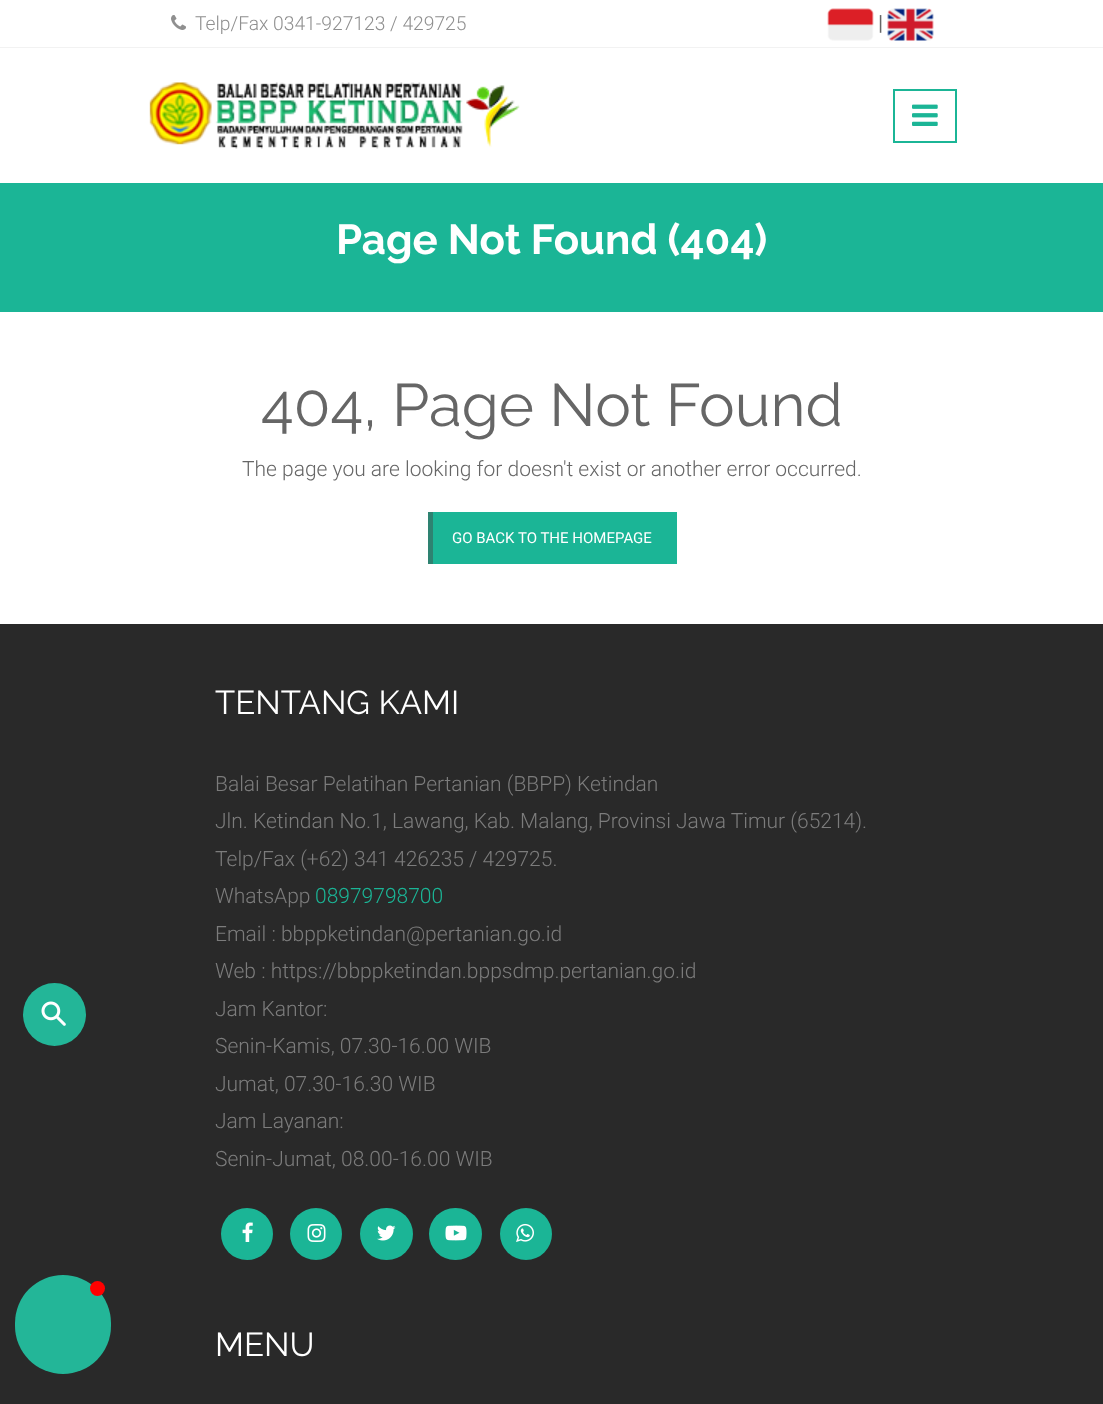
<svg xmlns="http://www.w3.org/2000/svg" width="1103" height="1404">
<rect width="100%" height="100%" fill="#fff"/>
<rect y="624" width="1103" height="780" fill="#292929"/>
<circle cx="54.5" cy="1014.5" r="31.5" fill="#23b698"/>
<image x="41" y="1001" width="25" height="25" href="media/1.png"/>
<rect y="47" width="1103" height="1" fill="#f2f2f2"/>
<image x="171" y="15" width="15" height="15" href="media/2.png"/>
<text x="195" y="30" style="font-family:Roboto;font-size:19.25px;font-weight:300;fill:#8f8f8f">Telp/Fax 0341-927123 / 429725</text>
<image x="827" y="8" width="47" height="33" href="media/3.png"/>
<text x="878" y="30" style="font-family:Roboto;font-size:21px;fill:#666">|</text>
<image x="887" y="8" width="47" height="33" href="media/4.png"/>
<image x="149" y="82" width="371" height="67" href="media/5.png"/>
<rect x="894" y="90" width="62" height="52" fill="none" stroke="#1bb596" stroke-width="2"/>
<image x="912" y="104" width="26" height="22" href="media/6.png"/>
<rect y="183" width="1103" height="129" fill="#1bb596"/>
<text x="336" y="254" style="font-family:Raleway;font-size:42px;font-weight:100;fill:#fff">Page Not Found (404)</text>
<text x="261" y="426" style="font-family:'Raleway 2';font-size:60px;font-weight:100;fill:#666">404, Page Not Found</text>
<text x="242" y="476" style="font-family:Roboto;font-size:21px;font-weight:300;fill:#666">The page you are looking for doesn't exist or another error occurred.</text>
<rect x="433" y="512" width="244" height="52" fill="#1bb596"/>
<rect x="428" y="512" width="5" height="52" fill="#2e8271"/>
<text x="452" y="543" style="font-family:Roboto;font-size:15px;fill:#fff">GO BACK TO THE HOMEPAGE</text>
<text x="215" y="714" style="font-family:'Raleway 2';font-size:33px;font-weight:100;fill:#fff">TENTANG KAMI</text>
<text x="215" y="791" style="font-family:Roboto;font-size:21px;font-weight:300;fill:#7c7c7c">Balai Besar Pelatihan Pertanian (BBPP) Ketindan</text>
<text x="215" y="828" style="font-family:Roboto;font-size:21px;font-weight:300;fill:#7c7c7c">Jln. Ketindan No.1, Lawang, Kab. Malang, Provinsi Jawa Timur (65214).</text>
<text x="215" y="866" style="font-family:Roboto;font-size:21px;font-weight:300;fill:#7c7c7c">Telp/Fax (+62) 341 426235 / 429725.</text>
<text x="215" y="903" style="font-family:Roboto;font-size:21px;font-weight:300;fill:#7c7c7c">WhatsApp</text>
<text x="315" y="903" style="font-family:Roboto;font-size:21px;font-weight:300;fill:#1bb596">08979798700</text>
<text x="215" y="941" style="font-family:Roboto;font-size:21px;font-weight:300;fill:#7c7c7c">Email : bbppketindan@pertanian.go.id</text>
<text x="215" y="978" style="font-family:Roboto;font-size:21px;font-weight:300;fill:#7c7c7c">Web : https://bbppketindan.bppsdmp.pertanian.go.id</text>
<text x="215" y="1016" style="font-family:Roboto;font-size:21px;font-weight:300;fill:#7c7c7c">Jam Kantor:</text>
<text x="215" y="1053" style="font-family:Roboto;font-size:21px;font-weight:300;fill:#7c7c7c">Senin-Kamis, 07.30-16.00 WIB</text>
<text x="215" y="1091" style="font-family:Roboto;font-size:21px;font-weight:300;fill:#7c7c7c">Jumat, 07.30-16.30 WIB</text>
<text x="215" y="1128" style="font-family:Roboto;font-size:21px;font-weight:300;fill:#7c7c7c">Jam Layanan:</text>
<text x="215" y="1166" style="font-family:Roboto;font-size:21px;font-weight:300;fill:#7c7c7c">Senin-Jumat, 08.00-16.00 WIB</text>
<circle cx="247" cy="1234" r="26" fill="#1bb596"/>
<image x="242" y="1222" width="11" height="20" href="media/7.png"/>
<circle cx="316" cy="1234" r="26" fill="#1bb596"/>
<image x="307" y="1224" width="19" height="18" href="media/8.png"/>
<rect x="360" y="1208" width="53" height="52" rx="26" fill="#1bb596"/>
<image x="377" y="1225" width="19" height="16" href="media/9.png"/>
<rect x="429" y="1208" width="53" height="52" rx="26" fill="#1bb596"/>
<image x="445" y="1225" width="22" height="16" href="media/10.png"/>
<circle cx="526" cy="1234" r="26" fill="#1bb596"/>
<image x="516" y="1223" width="18" height="19" href="media/11.png"/>
<text x="215" y="1356" style="font-family:'Raleway 2';font-size:33px;font-weight:100;fill:#fff">MENU</text>
<rect x="15" y="1275" width="96" height="99" rx="48" fill="#23b698"/>
<circle cx="97.5" cy="1288.5" r="7.5" fill="#f00"/>
</svg>
